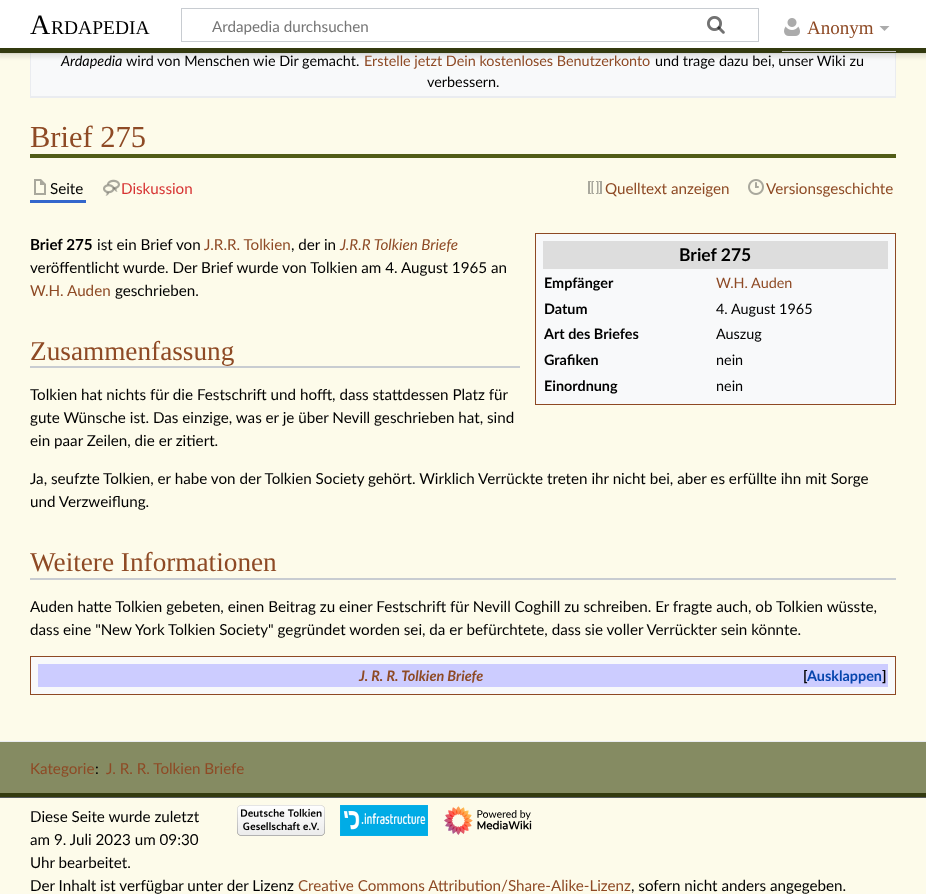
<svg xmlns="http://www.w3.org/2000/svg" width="926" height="894">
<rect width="100%" height="100%" fill="#fdfbea"/>
<rect x="31" y="53" width="864" height="43" fill="#f8f9fa"/>
<rect x="895" y="53" width="1" height="45" fill="#eaecf0"/>
<rect x="30" y="96" width="866" height="2" fill="#eaecf0"/>
<rect x="30" y="53" width="1" height="45" fill="#eaecf0"/>
<rect y="48" width="926" height="5" fill="#00000033" filter="blur(1px)"/>
<rect x="-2" y="49" width="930" height="9" fill="#00000012" filter="blur(1.5px)"/>
<rect width="926" height="48" fill="#fff"/>
<text x="30" y="34" style="font-family:Liberation Serif;font-size:28px;fill:#000">A</text>
<text x="51" y="34" style="font-family:Liberation Serif;font-size:19.5px;fill:#000">RDAPEDIA</text>
<rect x="181.5" y="8.5" width="577" height="33" fill="none" stroke="#c8ccd1"/>
<image x="707" y="16" width="18" height="18" href="media/1.png"/>
<text x="212" y="32" style="font-family:Lato;font-size:15.2px;fill:#757575">Ardapedia durchsuchen</text>
<image x="707" y="16" width="18" height="18" href="media/2.png"/>
<image x="784" y="18" width="16" height="18" href="media/3.png"/>
<rect y="48" width="926" height="5" fill="#333a0f"/>
<rect x="782" y="51" width="114" height="1" fill="#c0c0c0"/>
<text x="807" y="34" style="font-family:Liberation Serif;font-size:19px;fill:#8e4a25">Anonym</text>
<path d="M889.5 26l-5 5l-5-5z" fill="#ababab"/>
<rect y="742" width="926" height="51" fill="#858b62"/>
<rect y="793" width="926" height="4" fill="#333a0f"/>
<rect y="741" width="926" height="1" fill="#eaecf0"/>
<text x="61" y="66" style="font-family:Lato;font-size:14.4px;font-style:italic;fill:#000">Ardapedia</text>
<text x="126" y="66" style="font-family:Lato;font-size:14.4px;fill:#000">wird von Menschen wie Dir gemacht.</text>
<text x="364" y="66" style="font-family:Lato;font-size:14.4px;fill:#8e4a25">Erstelle jetzt Dein kostenloses Benutzerkonto</text>
<text x="655" y="66" style="font-family:Lato;font-size:14.4px;fill:#000">und trage dazu bei, unser Wiki zu</text>
<text x="427" y="87" style="font-family:Lato;font-size:14.4px;fill:#000">verbessern.</text>
<rect x="30" y="154" width="866" height="4" fill="#515c17"/>
<text x="30" y="147" style="font-family:Liberation Serif;font-size:30.5px;fill:#8e4a25">Brief 275</text>
<rect x="30" y="200" width="56" height="3" fill="#36c"/>
<image x="34" y="179" width="12" height="16" href="media/4.png"/>
<text x="50" y="194" style="font-family:Lato;font-size:15.2px;fill:#000">Seite</text>
<image x="103" y="179" width="17" height="17" href="media/5.png"/>
<text x="121" y="194" style="font-family:Lato;font-size:15.2px;fill:#d73333">Diskussion</text>
<image x="588" y="181" width="14" height="13" href="media/6.png"/>
<text x="605" y="194" style="font-family:Lato;font-size:15.2px;fill:#8e4a25">Quelltext anzeigen</text>
<image x="748" y="179" width="16" height="16" href="media/7.png"/>
<text x="766" y="194" style="font-family:Lato;font-size:15.2px;fill:#8e4a25">Versionsgeschichte</text>
<text x="30" y="250" style="font-family:Lato;font-size:15.2px;font-weight:bold;fill:#000">Brief 275</text>
<text x="97" y="250" style="font-family:Lato;font-size:15.2px;fill:#000">ist ein Brief von</text>
<text x="204" y="250" style="font-family:Lato;font-size:15.2px;fill:#8e4a25">J.R.R. Tolkien</text>
<text x="291" y="250" style="font-family:Lato;font-size:15.2px;fill:#000">, der in</text>
<text x="340" y="250" style="font-family:Lato;font-size:15.2px;font-style:italic;fill:#8e4a25">J.R.R Tolkien Briefe</text>
<text x="30" y="273" style="font-family:Lato;font-size:15.2px;fill:#000">veröffentlicht wurde. Der Brief wurde von Tolkien am 4. August 1965 an</text>
<text x="30" y="296" style="font-family:Lato;font-size:15.2px;fill:#8e4a25">W.H. Auden</text>
<text x="115" y="296" style="font-family:Lato;font-size:15.2px;fill:#000">geschrieben.</text>
<rect x="535.5" y="233.5" width="360" height="171" fill="#f8f9fa" stroke="#8e4924"/>
<rect x="543" y="241" width="345" height="28" fill="#ddd"/>
<text x="679" y="261" style="font-family:Lato;font-size:17.5px;font-weight:bold;fill:#000">Brief 275</text>
<text x="544" y="288" style="font-family:Lato;font-size:14.4px;font-weight:bold;fill:#000">Empfänger</text>
<text x="716" y="288" style="font-family:Lato;font-size:14.4px;fill:#8e4a25">W.H. Auden</text>
<text x="544" y="314" style="font-family:Lato;font-size:14.4px;font-weight:bold;fill:#000">Datum</text>
<text x="716" y="314" style="font-family:Lato;font-size:14.4px;fill:#000">4. August 1965</text>
<text x="544" y="339" style="font-family:Lato;font-size:14.4px;font-weight:bold;fill:#000">Art des Briefes</text>
<text x="716" y="339" style="font-family:Lato;font-size:14.4px;fill:#000">Auszug</text>
<text x="544" y="365" style="font-family:Lato;font-size:14.4px;font-weight:bold;fill:#000">Grafiken</text>
<text x="716" y="365" style="font-family:Lato;font-size:14.4px;fill:#000">nein</text>
<text x="544" y="391" style="font-family:Lato;font-size:14.4px;font-weight:bold;fill:#000">Einordnung</text>
<text x="716" y="391" style="font-family:Lato;font-size:14.4px;fill:#000">nein</text>
<rect x="30" y="366" width="490" height="2" fill="#c8ccd1"/>
<text x="30" y="360" style="font-family:Liberation Serif;font-size:27.25px;fill:#8e4a25">Zusammenfassung</text>
<text x="30" y="400" style="font-family:Lato;font-size:15.2px;fill:#000">Tolkien hat nichts für die Festschrift und hofft, dass stattdessen Platz für</text>
<text x="30" y="423" style="font-family:Lato;font-size:15.2px;fill:#000">gute Wünsche ist. Das einzige, was er je über Nevill geschrieben hat, sind</text>
<text x="30" y="446" style="font-family:Lato;font-size:15.2px;fill:#000">ein paar Zeilen, die er zitiert.</text>
<text x="30" y="484" style="font-family:Lato;font-size:15.2px;fill:#000">Ja, seufzte Tolkien, er habe von der Tolkien Society gehört. Wirklich Verrückte treten ihr nicht bei, aber es erfüllte ihn mit Sorge</text>
<text x="30" y="507" style="font-family:Lato;font-size:15.2px;fill:#000">und Verzweiflung.</text>
<rect x="30" y="578" width="866" height="2" fill="#c8ccd1"/>
<text x="30" y="571" style="font-family:Liberation Serif;font-size:27.25px;fill:#8e4a25">Weitere Informationen</text>
<text x="30" y="612" style="font-family:Lato;font-size:15.2px;fill:#000">Auden hatte Tolkien gebeten, einen Beitrag zu einer Festschrift für Nevill Coghill zu schreiben. Er fragte auch, ob Tolkien wüsste,</text>
<text x="30" y="635" style="font-family:Lato;font-size:15.2px;fill:#000">dass eine "New York Tolkien Society" gegründet worden sei, da er befürchtete, dass sie voller Verrückter sein könnte.</text>
<rect x="30.5" y="656.5" width="865" height="38" fill="#f8f9fa" stroke="#8e4924"/>
<rect x="38" y="664" width="850" height="23" fill="#ccf"/>
<text x="359" y="681" style="font-family:Lato;font-size:14.4px;font-weight:bold;font-style:italic;fill:#8e4a25">J. R. R. Tolkien Briefe</text>
<text x="803" y="681" style="font-family:Lato;font-size:14.4px;font-weight:bold;fill:#000">[</text>
<text x="807" y="681" style="font-family:Lato;font-size:14.4px;font-weight:bold;fill:#0645ad">Ausklappen</text>
<text x="882" y="681" style="font-family:Lato;font-size:14.4px;font-weight:bold;fill:#000">]</text>
<text x="30" y="774" style="font-family:Lato;font-size:15.2px;fill:#8e4a25">Kategorie</text>
<text x="95" y="774" style="font-family:Lato;font-size:15.2px;fill:#000">:</text>
<text x="106" y="774" style="font-family:Lato;font-size:15.2px;fill:#8e4a25">J. R. R. Tolkien Briefe</text>
<rect y="797" width="926" height="1" fill="#54595d"/>
<image x="237" y="805" width="88" height="31" href="media/8.png"/>
<image x="340" y="805" width="88" height="31" href="media/9.png"/>
<image x="444" y="806" width="88" height="29" href="media/10.png"/>
<text x="30" y="822" style="font-family:Lato;font-size:15.2px;fill:#000">Diese Seite wurde zuletzt</text>
<text x="30" y="845" style="font-family:Lato;font-size:15.2px;fill:#000">am 9. Juli 2023 um 09:30</text>
<text x="30" y="868" style="font-family:Lato;font-size:15.2px;fill:#000">Uhr bearbeitet.</text>
<text x="30" y="891" style="font-family:Lato;font-size:15.2px;fill:#000">Der Inhalt ist verfügbar unter der Lizenz</text>
<text x="298" y="891" style="font-family:Lato;font-size:15.2px;fill:#8e4a25">Creative Commons Attribution/Share-Alike-Lizenz</text>
<text x="631" y="891" style="font-family:Lato;font-size:15.2px;fill:#000">, sofern nicht anders angegeben.</text>
</svg>
